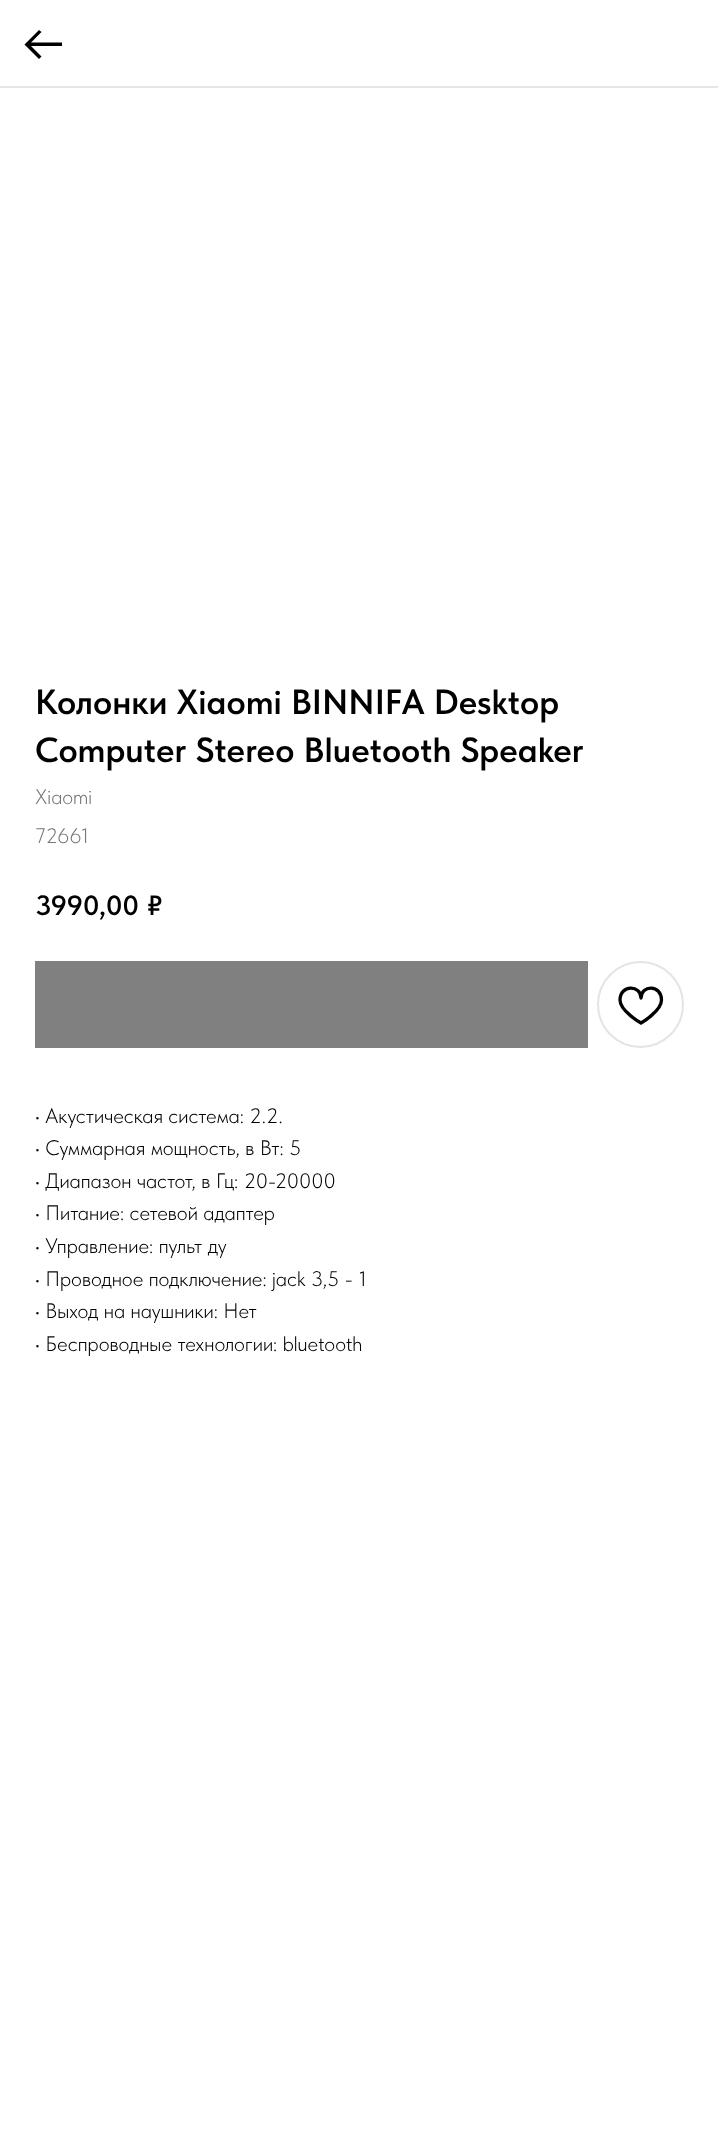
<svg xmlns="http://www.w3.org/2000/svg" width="718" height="2131">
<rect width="100%" height="100%" fill="#fff"/>
<rect y="86" width="718" height="2" fill="#e6e6e6"/>
<path d="M39 30l2.5 2l-10.5 10.5h31v3.5h-31l10.5 10.5l-2.5 2.5l-14.5-14.5z" fill="#000"/>
<text x="35" y="714" style="font-family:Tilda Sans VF;font-size:35px;font-weight:600;fill:#000">Колонки Xiaomi BINNIFA Desktop</text>
<text x="35" y="762" style="font-family:Tilda Sans VF;font-size:35px;font-weight:600;fill:#000">Computer Stereo Bluetooth Speaker</text>
<text x="35" y="804" style="font-family:Tilda Sans VF;font-size:21px;font-weight:300;fill:#777">Xiaomi</text>
<text x="35" y="843" style="font-family:Tilda Sans VF;font-size:21px;font-weight:300;fill:#777">72661</text>
<text x="35" y="915" style="font-family:Tilda Sans VF;font-size:28px;font-weight:600;fill:#000">3990,00</text>
<text x="147" y="915" style="font-family:Tilda Sans VF;font-size:28px;font-weight:600;fill:#000">₽</text>
<rect x="35" y="961" width="553" height="87" fill="#808080"/>
<circle cx="640.5" cy="1004.5" r="42.5" fill="none" stroke="#e4e4e4" stroke-width="2"/>
<path d="M661.5 1000c0 11-20.5 23-20.5 23c0 0-21-12-21-23c0-15.5 21-15.5 21-2c0-13.5 20.5-13.5 20.5 2z" fill="none" stroke="#000" stroke-width="3.3" stroke-linejoin="round"/>
<text x="35" y="1123" style="font-family:Tilda Sans VF;font-size:21px;font-weight:300;fill:#000">• Акустическая система: 2.2.</text>
<text x="35" y="1155" style="font-family:Tilda Sans VF;font-size:21px;font-weight:300;fill:#000">• Суммарная мощность, в Вт: 5</text>
<text x="35" y="1188" style="font-family:Tilda Sans VF;font-size:21px;font-weight:300;fill:#000">• Диапазон частот, в Гц: 20-20000</text>
<text x="35" y="1220" style="font-family:Tilda Sans VF;font-size:21px;font-weight:300;fill:#000">• Питание: сетевой адаптер</text>
<text x="35" y="1253" style="font-family:Tilda Sans VF;font-size:21px;font-weight:300;fill:#000">• Управление: пульт ду</text>
<text x="35" y="1286" style="font-family:Tilda Sans VF;font-size:21px;font-weight:300;fill:#000">• Проводное подключение: jack 3,5 - 1</text>
<text x="35" y="1318" style="font-family:Tilda Sans VF;font-size:21px;font-weight:300;fill:#000">• Выход на наушники: Нет</text>
<text x="35" y="1351" style="font-family:Tilda Sans VF;font-size:21px;font-weight:300;fill:#000">• Беспроводные технологии: bluetooth</text>
</svg>
